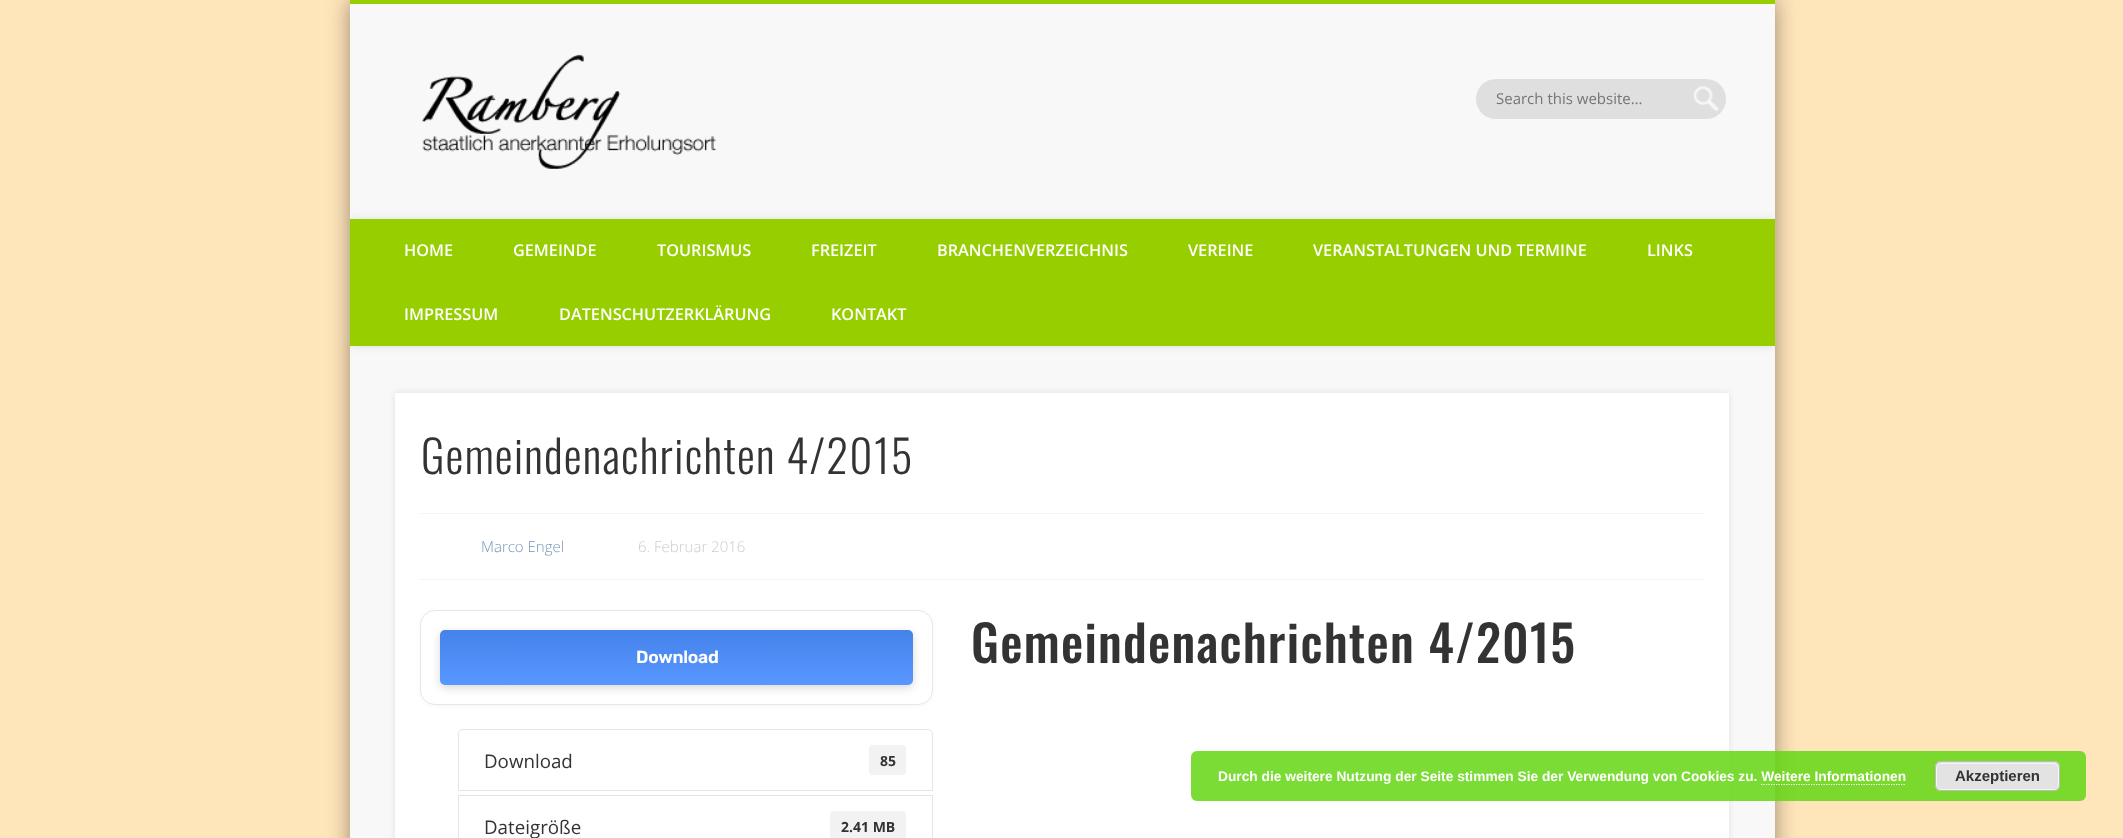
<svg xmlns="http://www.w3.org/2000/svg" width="2123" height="838">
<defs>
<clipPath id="clip1"><rect x="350" y="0" width="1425" height="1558"/></clipPath>
<linearGradient id="g1" gradientUnits="userSpaceOnUse" x1="676" y1="630" x2="676" y2="685"><stop offset="0" stop-color="#000" stop-opacity="0.08"/><stop offset="1" stop-color="#fff" stop-opacity="0.08"/></linearGradient>
</defs>
<rect width="100%" height="100%" fill="#ffe5ba"/>
<rect x="350" width="1425" height="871" fill="#00000066" filter="blur(11px)"/>
<rect x="350" y="4" width="1425" height="834" fill="#f8f8f8"/>
<rect x="350" width="1425" height="4" fill="#97ce00"/>
<image x="422" y="54" width="295" height="115" href="media/1.png"/>
<rect x="1476" y="79" width="250" height="40" rx="20" fill="#dfdfdf"/>
<image x="1693" y="86" width="26" height="25" href="media/2.png"/>
<text x="1496" y="104" style="font-family:Open Sans;font-size:15px;fill:#757575">Search this website…</text>
<g clip-path="url(#clip1)">
<rect x="350" y="219" width="1425" height="127" fill="#0000001a" filter="blur(4.5px)"/>
</g>
<rect x="350" y="219" width="1425" height="127" fill="#97ce00"/>
<text x="404" y="256" style="font-family:Open Sans;font-size:16.25px;font-weight:600;fill:#fff">HOME</text>
<text x="513" y="256" style="font-family:Open Sans;font-size:16.25px;font-weight:600;fill:#fff">GEMEINDE</text>
<text x="657" y="256" style="font-family:Open Sans;font-size:16.25px;font-weight:600;fill:#fff">TOURISMUS</text>
<text x="811" y="256" style="font-family:Open Sans;font-size:16.25px;font-weight:600;fill:#fff">FREIZEIT</text>
<text x="937" y="256" style="font-family:Open Sans;font-size:16.25px;font-weight:600;fill:#fff">BRANCHENVERZEICHNIS</text>
<text x="1188" y="256" style="font-family:Open Sans;font-size:16.25px;font-weight:600;fill:#fff">VEREINE</text>
<text x="1313" y="256" style="font-family:Open Sans;font-size:16.25px;font-weight:600;fill:#fff">VERANSTALTUNGEN UND TERMINE</text>
<text x="1647" y="256" style="font-family:Open Sans;font-size:16.25px;font-weight:600;fill:#fff">LINKS</text>
<text x="404" y="320" style="font-family:Open Sans;font-size:16.25px;font-weight:600;fill:#fff">IMPRESSUM</text>
<text x="559" y="320" style="font-family:Open Sans;font-size:16.25px;font-weight:600;fill:#fff">DATENSCHUTZERKLÄRUNG</text>
<text x="831" y="320" style="font-family:Open Sans;font-size:16.25px;font-weight:600;fill:#fff">KONTAKT</text>
<rect x="395" y="393" width="1334" height="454" fill="#0000001a" filter="blur(3px)"/>
<rect x="395" y="393" width="1334" height="445" fill="#fff"/>
<text x="421" y="474" style="font-family:Oswald;font-size:45px;font-weight:300;letter-spacing:1.25px;fill:#333">Gemeindenachrichten 4/2015</text>
<rect x="420" y="513" width="1284" height="1" fill="#f4f4f4"/>
<rect x="420" y="579" width="1284" height="1" fill="#f4f4f4"/>
<text x="481" y="552" style="font-family:Open Sans;font-size:15px;font-weight:300;fill:#7597b9">Marco Engel</text>
<text x="638" y="552" style="font-family:Open Sans;font-size:15px;font-weight:300;fill:#ccc">6. Februar 2016</text>
<text x="971" y="663" style="font-family:Oswald;font-size:50px;font-weight:500;letter-spacing:1.25px;fill:#333">Gemeindenachrichten 4/2015</text>
<rect x="420" y="611" width="513" height="95" rx="15" fill="#0000000a" filter="blur(2px)"/>
<rect x="420.5" y="610.5" width="512" height="94" rx="14.5" fill="#fff" stroke="#e2e8f0"/>
<rect x="440" y="633" width="473" height="55" rx="5" fill="#00000026" filter="blur(4px)"/>
<rect x="440" y="630" width="473" height="55" rx="5" fill="#4a8eff"/>
<rect x="440" y="630" width="473" height="55" rx="5" fill="url(#g1)"/>
<text x="636" y="663" style="font-family:Rubik;font-size:17.5px;font-weight:600;letter-spacing:-0.25px;fill:#fff">Download</text>
<path d="M463 729.5h465c2.5 0 4.5 2 4.5 4.5v56.5h-474v-56.5c0-2.5 2-4.5 4.5-4.5z" fill="none" stroke="#e5e5e5"/>
<text x="484" y="768" style="font-family:Open Sans;font-size:18.75px;fill:#333">Download</text>
<rect x="869" y="745" width="37" height="30" rx="4" fill="#f2f2f2"/>
<text x="880" y="766" style="font-family:Open Sans;font-size:14px;font-weight:bold;fill:#333">85</text>
<rect x="458.5" y="795.5" width="474" height="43" fill="none" stroke="#e5e5e5"/>
<text x="484" y="834" style="font-family:Open Sans;font-size:18.75px;fill:#333">Dateigröße</text>
<rect x="830" y="811" width="76" height="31" rx="4" fill="#f2f2f2"/>
<text x="841" y="832" style="font-family:Open Sans;font-size:14px;font-weight:bold;fill:#333">2.41 MB</text>
<rect x="1191" y="751" width="895" height="50" rx="6" fill="#64d613d9"/>
<text x="1218" y="781" style="font-family:Liberation Sans;font-size:13.75px;font-weight:bold;fill:#fff">Durch die weitere Nutzung der Seite stimmen Sie der Verwendung von Cookies zu. Weitere Informationen</text>
<rect x="1935" y="761" width="125" height="30" rx="6" fill="#e3e3e3"/>
<rect x="1936.5" y="763.5" width="122" height="26" rx="4.5" fill="none" stroke="#f6f6f6"/>
<rect x="1935.5" y="761.5" width="124" height="29" rx="5.5" fill="none" stroke="#bbb"/>
<text x="1955" y="781" style="font-family:Liberation Sans;font-size:15px;font-weight:bold;fill:#333">Akzeptieren</text>
<path d="M1761 784.5h145" fill="none" stroke="#fff" stroke-width="1.2" stroke-dasharray="1.25 1.25"/>
</svg>
